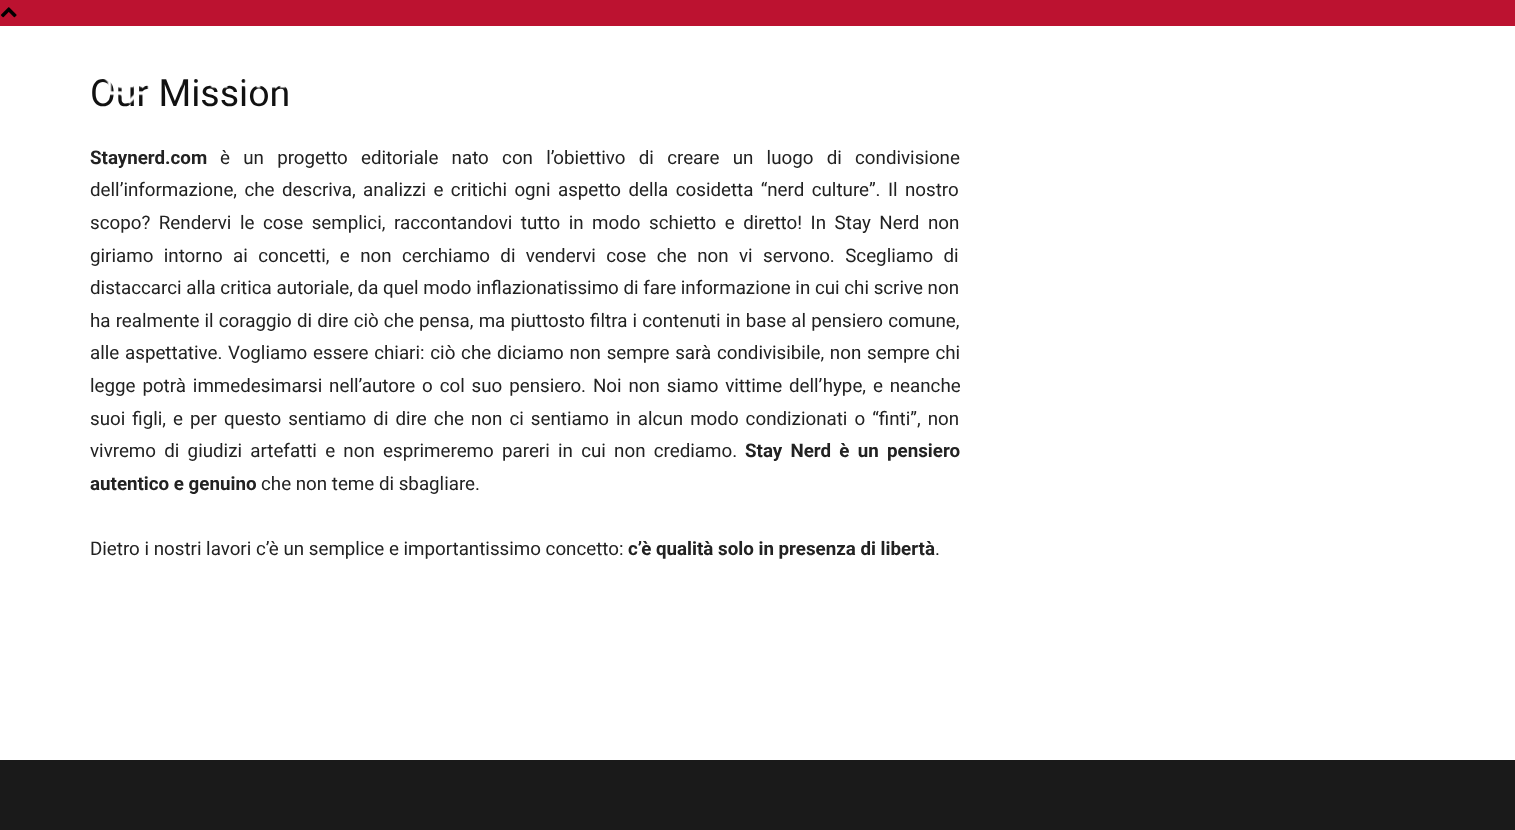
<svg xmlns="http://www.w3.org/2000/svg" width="1515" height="830">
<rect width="100%" height="100%" fill="#fff"/>
<rect width="1515" height="26" fill="#bc1230"/>
<image x="0" y="7" width="17" height="11" href="media/1.png"/>
<text x="90" y="106" style="font-family:Roboto;font-size:37.5px;fill:#111">Our Mission</text>
<text x="90" y="164" style="font-family:Roboto;font-size:18.75px;font-weight:bold;fill:#222">Staynerd.com</text>
<text x="220" y="164" word-spacing="8.6" style="font-family:Roboto;font-size:18.75px;fill:#222">è un progetto editoriale nato con l’obiettivo di creare un luogo di condivisione</text>
<text x="90" y="196" word-spacing="2.75" style="font-family:Roboto;font-size:18.75px;fill:#222">dell’informazione, che descriva, analizzi e critichi ogni aspetto della cosidetta “nerd culture”. Il nostro</text>
<text x="90" y="229" word-spacing="3.9" style="font-family:Roboto;font-size:18.75px;fill:#222">scopo? Rendervi le cose semplici, raccontandovi tutto in modo schietto e diretto! In Stay Nerd non</text>
<text x="90" y="262" word-spacing="5.75" style="font-family:Roboto;font-size:18.75px;fill:#222">giriamo intorno ai concetti, e non cerchiamo di vendervi cose che non vi servono. Scegliamo di</text>
<text x="90" y="294" style="font-family:Roboto;font-size:18.75px;fill:#222">distaccarci alla critica autoriale, da quel modo inflazionatissimo di fare informazione in cui chi scrive non</text>
<text x="90" y="327" word-spacing="0.5" style="font-family:Roboto;font-size:18.75px;fill:#222">ha realmente il coraggio di dire ciò che pensa, ma piuttosto filtra i contenuti in base al pensiero comune,</text>
<text x="90" y="359" word-spacing="1.1" style="font-family:Roboto;font-size:18.75px;fill:#222">alle aspettative. Vogliamo essere chiari: ciò che diciamo non sempre sarà condivisibile, non sempre chi</text>
<text x="90" y="392" word-spacing="2.25" style="font-family:Roboto;font-size:18.75px;fill:#222">legge potrà immedesimarsi nell’autore o col suo pensiero. Noi non siamo vittime dell’hype, e neanche</text>
<text x="90" y="425" word-spacing="2.4" style="font-family:Roboto;font-size:18.75px;fill:#222">suoi figli, e per questo sentiamo di dire che non ci sentiamo in alcun modo condizionati o “finti”, non</text>
<text x="90" y="457" word-spacing="3.6" style="font-family:Roboto;font-size:18.75px;fill:#222">vivremo di giudizi artefatti e non esprimeremo pareri in cui non crediamo.</text>
<text x="745" y="457" word-spacing="3.6" style="font-family:Roboto;font-size:18.75px;font-weight:bold;fill:#222">Stay Nerd è un pensiero</text>
<text x="90" y="490" style="font-family:Roboto;font-size:18.75px;font-weight:bold;fill:#222">autentico e genuino</text>
<text x="261" y="490" style="font-family:Roboto;font-size:18.75px;fill:#222">che non teme di sbagliare.</text>
<text x="90" y="555" style="font-family:Roboto;font-size:18.75px;fill:#222">Dietro i nostri lavori c’è un semplice e importantissimo concetto:</text>
<text x="628" y="555" style="font-family:Roboto;font-size:18.75px;font-weight:bold;fill:#222">c’è qualità solo in presenza di libertà</text>
<text x="935" y="555" style="font-family:Roboto;font-size:18.75px;fill:#222">.</text>
<image x="103" y="79" width="183" height="26" href="media/2.png"/>
<rect y="760" width="1515" height="70" fill="#1a1a1a"/>
</svg>
